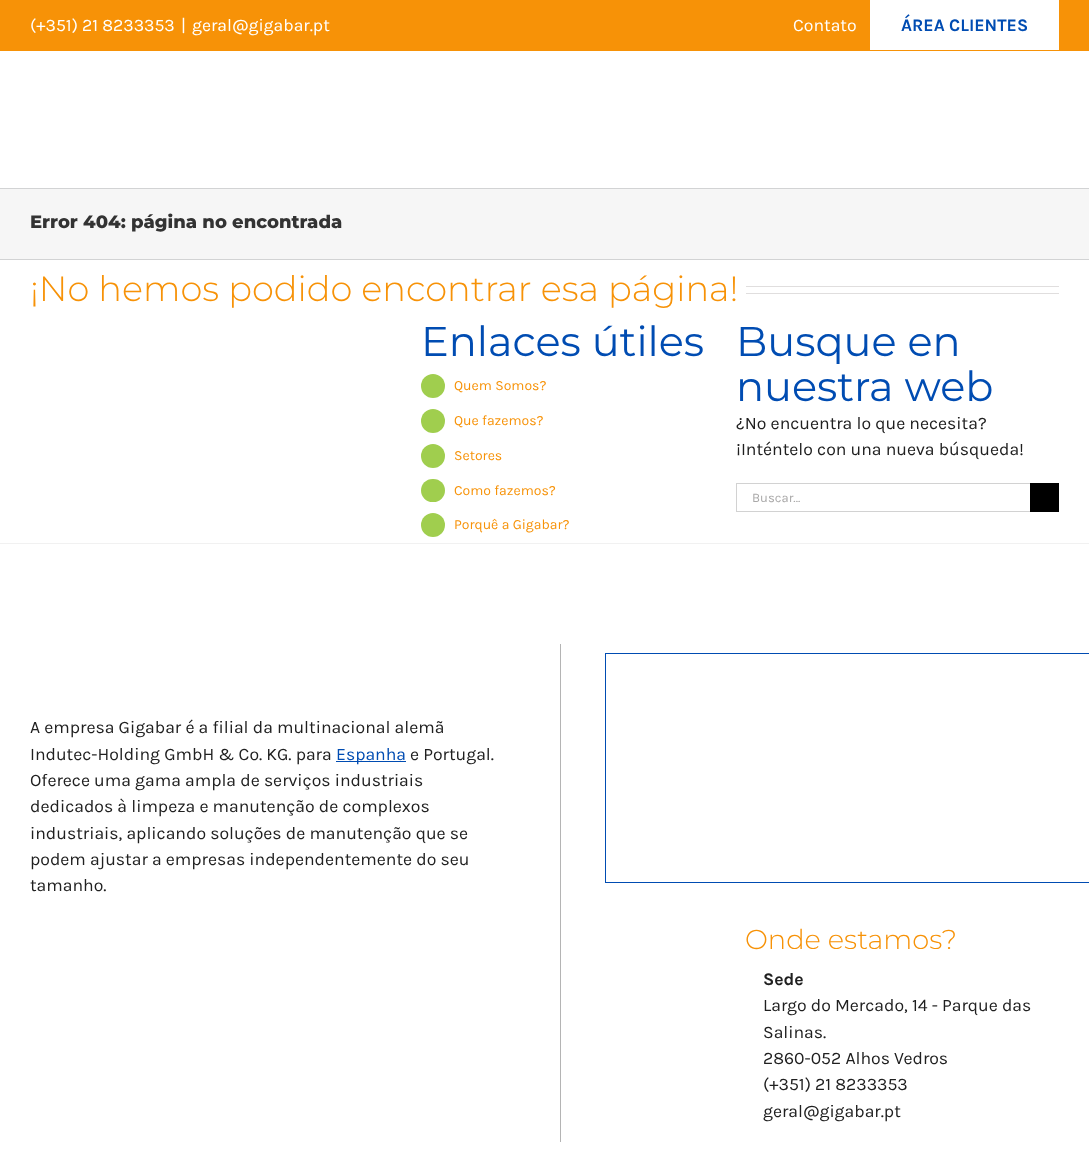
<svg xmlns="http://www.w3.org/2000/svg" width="1089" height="1159">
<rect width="100%" height="100%" fill="#fff"/>
<rect width="1089" height="51" fill="#f79207"/>
<text x="30" y="31" style="font-family:Karla;font-size:17.6px;fill:#fff">(+351) 21 8233353</text>
<text x="181" y="31" style="font-family:Karla;font-size:17.6px;fill:#fff">|</text>
<text x="192" y="31" style="font-family:Karla;font-size:17.6px;fill:#fff">geral@gigabar.pt</text>
<text x="793" y="31" style="font-family:Karla;font-size:17.6px;fill:#fff">Contato</text>
<rect x="870" width="189" height="50" fill="#fff"/>
<text x="901" y="31" style="font-family:Karla;font-size:17.6px;font-weight:bold;fill:#004cb2">ÁREA CLIENTES</text>
<rect y="189" width="1089" height="70" fill="#f6f6f6"/>
<rect y="188" width="1089" height="1" fill="#d2d3d4"/>
<rect y="259" width="1089" height="1" fill="#d2d3d4"/>
<text x="30" y="228" style="font-family:Montserrat;font-size:18px;font-weight:800;fill:#333">Error 404: página no encontrada</text>
<text x="30" y="301" style="font-family:Montserrat;font-size:35.2px;font-weight:300;fill:#f79207">¡No hemos podido encontrar esa página!</text>
<rect x="746" y="286" width="313" height="1" fill="#e0dede"/>
<rect x="746" y="293" width="313" height="1" fill="#e0dede"/>
<text x="421" y="356" style="font-family:Montserrat;font-size:41.5px;fill:#004cb2">Enlaces útiles</text>
<circle cx="433" cy="386" r="12" fill="#a0ce4e"/>
<text x="454" y="390" style="font-family:Karla;font-size:14px;fill:#f79207">Quem Somos?</text>
<circle cx="433" cy="421" r="12" fill="#a0ce4e"/>
<text x="454" y="425" style="font-family:Karla;font-size:14px;fill:#f79207">Que fazemos?</text>
<circle cx="433" cy="456" r="12" fill="#a0ce4e"/>
<text x="454" y="460" style="font-family:Karla;font-size:14px;fill:#f79207">Setores</text>
<rect x="421" y="479" width="24" height="23" rx="11.5" fill="#a0ce4e"/>
<text x="454" y="495" style="font-family:Karla;font-size:14px;fill:#f79207">Como fazemos?</text>
<circle cx="433" cy="525" r="12" fill="#a0ce4e"/>
<text x="454" y="529" style="font-family:Karla;font-size:14px;fill:#f79207">Porquê a Gigabar?</text>
<text x="736" y="356" style="font-family:Montserrat;font-size:41.5px;fill:#004cb2">Busque en</text>
<text x="736" y="401" style="font-family:Montserrat;font-size:41.5px;fill:#004cb2">nuestra web</text>
<text x="736" y="429" style="font-family:Karla;font-size:17.6px;fill:#202020">¿No encuentra lo que necesita?</text>
<text x="736" y="455" style="font-family:Karla;font-size:17.6px;fill:#202020">¡Inténtelo con una nueva búsqueda!</text>
<rect x="736" y="483" width="294" height="1" fill="#d2d2d2"/>
<rect x="736" y="511" width="294" height="1" fill="#d2d2d2"/>
<rect x="736" y="483" width="1" height="29" fill="#d2d2d2"/>
<text x="752" y="502" style="font-family:Karla;font-size:13px;fill:#aaa9a9">Buscar...</text>
<rect x="1030" y="483" width="29" height="29" fill="#000"/>
<rect y="543" width="1089" height="1" fill="#f1f1f1"/>
<text x="30" y="733" style="font-family:Karla;font-size:17.6px;fill:#202020">A empresa Gigabar é a filial da multinacional alemã</text>
<text x="30" y="760" style="font-family:Karla;font-size:17.6px;fill:#202020">Indutec-Holding GmbH &amp; Co. KG. para</text>
<rect x="336" y="761" width="70" height="1" fill="#004cb2"/>
<text x="336" y="760" style="font-family:Karla;font-size:17.6px;fill:#004cb2">Espanha</text>
<text x="410" y="760" style="font-family:Karla;font-size:17.6px;fill:#202020">e Portugal.</text>
<text x="30" y="786" style="font-family:Karla;font-size:17.6px;fill:#202020">Oferece uma gama ampla de serviços industriais</text>
<text x="30" y="812" style="font-family:Karla;font-size:17.6px;fill:#202020">dedicados à limpeza e manutenção de complexos</text>
<text x="30" y="839" style="font-family:Karla;font-size:17.6px;fill:#202020">industriais, aplicando soluções de manutenção que se</text>
<text x="30" y="865" style="font-family:Karla;font-size:17.6px;fill:#202020">podem ajustar a empresas independentemente do seu</text>
<text x="30" y="891" style="font-family:Karla;font-size:17.6px;fill:#202020">tamanho.</text>
<rect x="560" y="644" width="1" height="498" fill="#b4b4b4"/>
<rect x="605.5" y="653.5" width="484" height="229" fill="none" stroke="#004cb2"/>
<text x="745" y="949" style="font-family:Montserrat;font-size:27.25px;font-weight:300;fill:#f79207">Onde estamos?</text>
<text x="763" y="985" style="font-family:Karla;font-size:17.6px;font-weight:bold;fill:#202020">Sede</text>
<text x="763" y="1011" style="font-family:Karla;font-size:17.6px;fill:#202020">Largo do Mercado, 14 - Parque das</text>
<text x="763" y="1038" style="font-family:Karla;font-size:17.6px;fill:#202020">Salinas.</text>
<text x="763" y="1064" style="font-family:Karla;font-size:17.6px;fill:#202020">2860-052 Alhos Vedros</text>
<text x="763" y="1090" style="font-family:Karla;font-size:17.6px;fill:#202020">(+351) 21 8233353</text>
<text x="763" y="1117" style="font-family:Karla;font-size:17.6px;fill:#202020">geral@gigabar.pt</text>
</svg>
